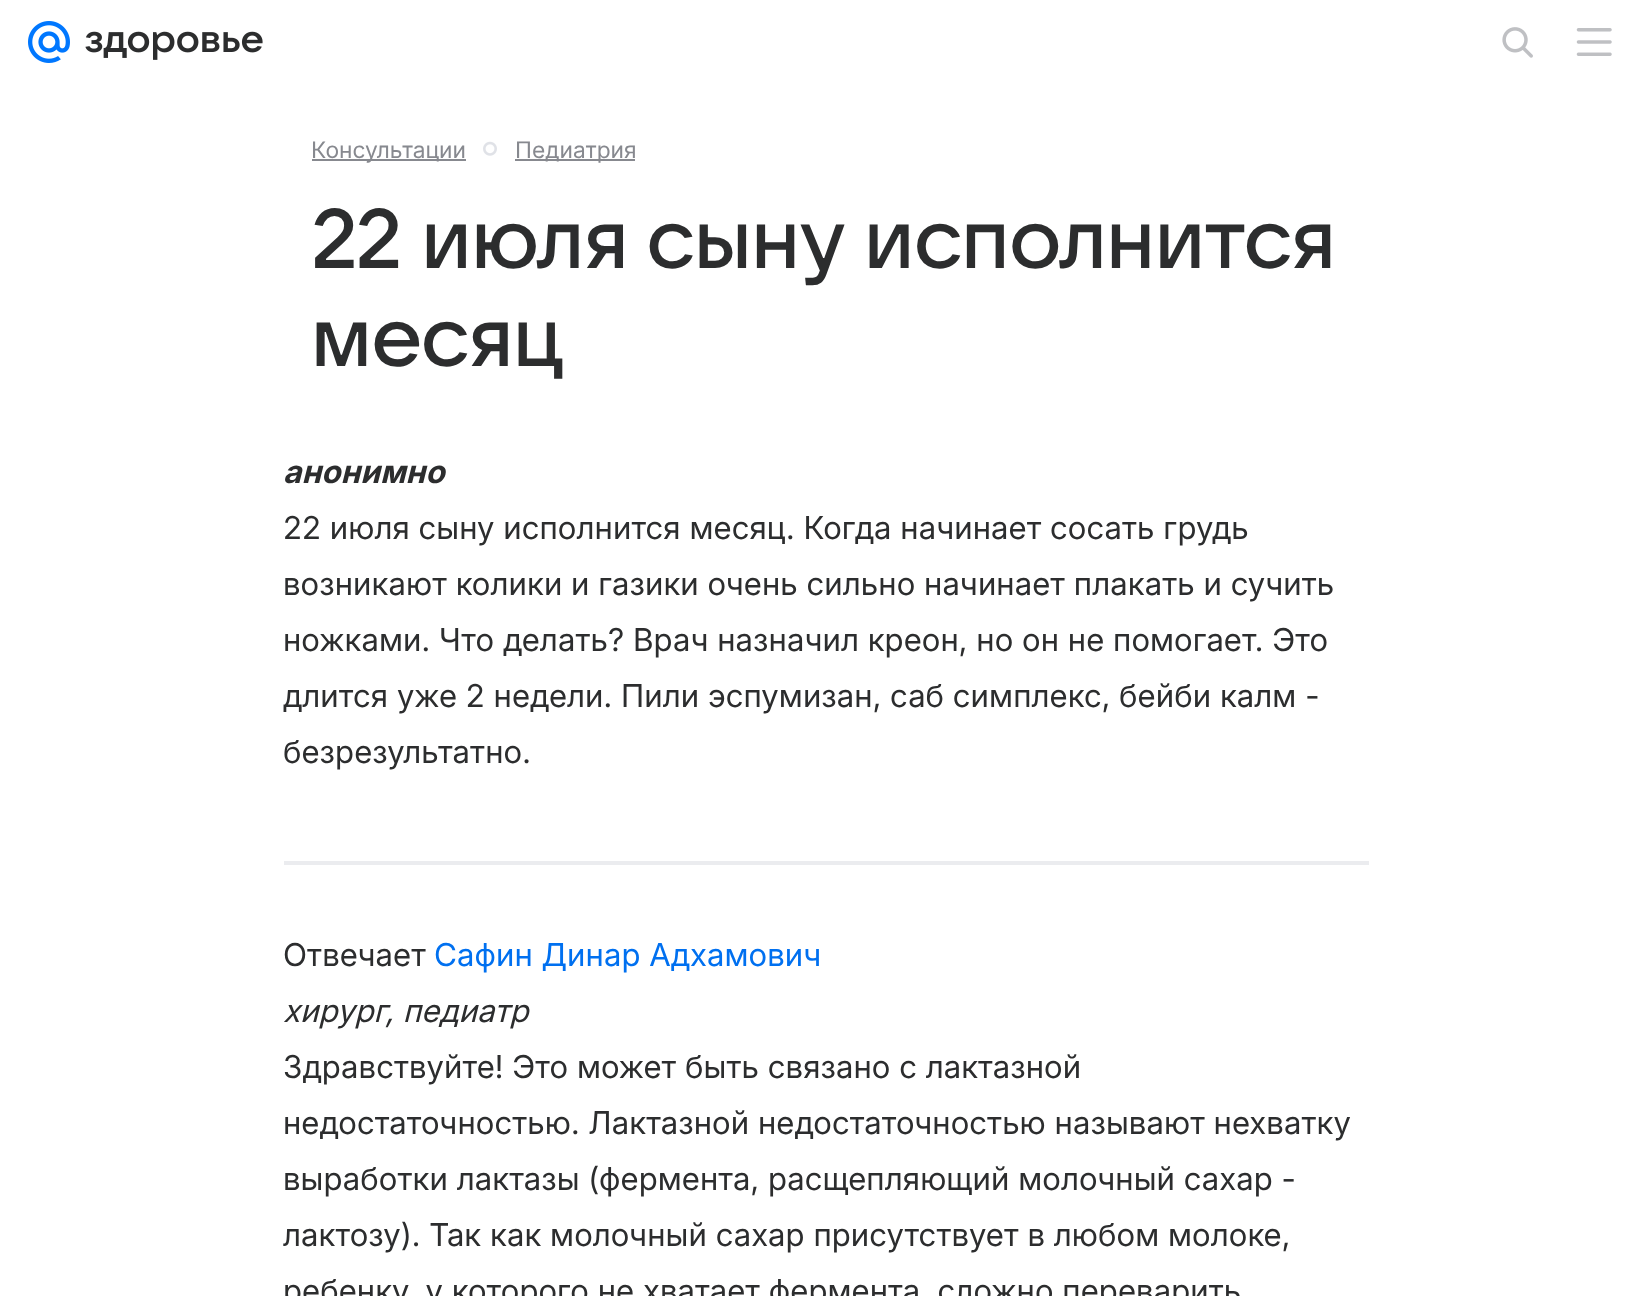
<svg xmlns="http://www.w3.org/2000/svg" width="1649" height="1296">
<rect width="100%" height="100%" fill="#fff"/>
<image x="28" y="21" width="42" height="42" href="media/1.png"/>
<image x="85" y="31" width="178" height="29" href="media/2.png"/>
<image x="1502" y="27" width="31" height="31" href="media/3.png"/>
<image x="1576" y="28" width="36" height="28" href="media/4.png"/>
<rect x="312" y="159" width="154" height="2" fill="#87898f"/>
<text x="311" y="158" style="font-family:'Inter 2';font-size:22.75px;fill:#87898f">Консультации</text>
<image x="483" y="141" width="14" height="15" href="media/5.png"/>
<rect x="515" y="159" width="120" height="2" fill="#87898f"/>
<text x="515" y="158" style="font-family:'Inter 2';font-size:22.75px;fill:#87898f">Педиатрия</text>
<text x="311" y="268" style="font-family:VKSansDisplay;font-size:84px;font-weight:500;letter-spacing:-0.4px;fill:#2c2d2e">22 июля сыну исполнится</text>
<text x="311" y="366" style="font-family:VKSansDisplay;font-size:84px;font-weight:500;letter-spacing:-0.4px;fill:#2c2d2e">месяц</text>
<text x="283" y="483" style="font-family:Inter;font-size:31.5px;font-weight:bold;font-style:italic;letter-spacing:0.1px;fill:#2c2d2e">анонимно</text>
<text x="283" y="539" style="font-family:Inter;font-size:31.5px;letter-spacing:0.1px;fill:#2c2d2e">22 июля сыну исполнится месяц. Когда начинает сосать грудь</text>
<text x="283" y="595" style="font-family:Inter;font-size:31.5px;letter-spacing:0.1px;fill:#2c2d2e">возникают колики и газики очень сильно начинает плакать и сучить</text>
<text x="283" y="651" style="font-family:Inter;font-size:31.5px;letter-spacing:0.1px;fill:#2c2d2e">ножками. Что делать? Врач назначил креон, но он не помогает. Это</text>
<text x="283" y="707" style="font-family:Inter;font-size:31.5px;letter-spacing:0.1px;fill:#2c2d2e">длится уже 2 недели. Пили эспумизан, саб симплекс, бейби калм -</text>
<text x="283" y="763" style="font-family:Inter;font-size:31.5px;letter-spacing:0.1px;fill:#2c2d2e">безрезультатно.</text>
<rect x="284" y="861" width="1085" height="4" fill="#ebecef"/>
<text x="283" y="966" style="font-family:Inter;font-size:31.5px;letter-spacing:0.1px;fill:#2c2d2e">Отвечает</text>
<text x="434" y="966" style="font-family:Inter;font-size:31.5px;letter-spacing:0.1px;fill:#0070f0">Сафин Динар Адхамович</text>
<text x="283" y="1022" style="font-family:Inter;font-size:31.5px;font-style:italic;letter-spacing:0.1px;fill:#2c2d2e">хирург, педиатр</text>
<text x="283" y="1078" style="font-family:Inter;font-size:31.5px;letter-spacing:0.1px;fill:#2c2d2e">Здравствуйте! Это может быть связано с лактазной</text>
<text x="283" y="1134" style="font-family:Inter;font-size:31.5px;letter-spacing:0.1px;fill:#2c2d2e">недостаточностью. Лактазной недостаточностью называют нехватку</text>
<text x="283" y="1190" style="font-family:Inter;font-size:31.5px;letter-spacing:0.1px;fill:#2c2d2e">выработки лактазы (фермента, расщепляющий молочный сахар -</text>
<text x="283" y="1246" style="font-family:Inter;font-size:31.5px;letter-spacing:0.1px;fill:#2c2d2e">лактозу). Так как молочный сахар присутствует в любом молоке,</text>
<text x="283" y="1302" style="font-family:Inter;font-size:31.5px;letter-spacing:0.1px;fill:#2c2d2e">ребенку, у которого не хватает фермента, сложно переварить</text>
</svg>
